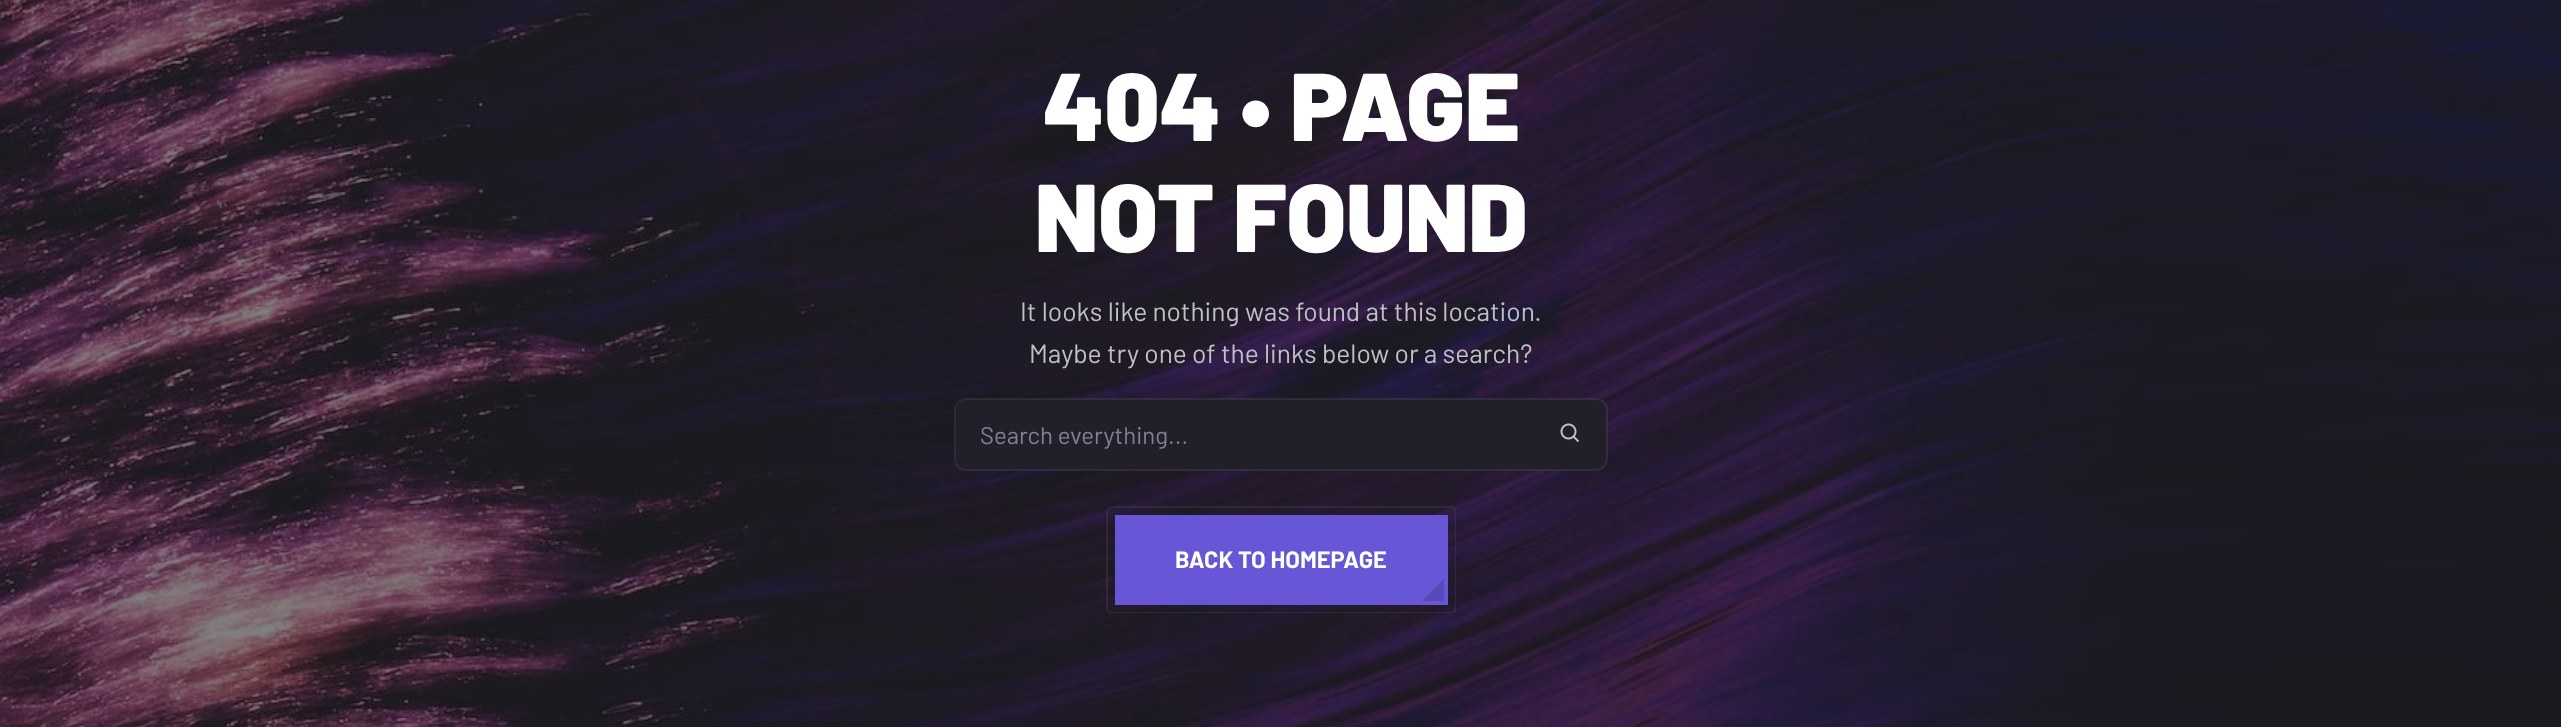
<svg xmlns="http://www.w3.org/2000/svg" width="2561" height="727">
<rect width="100%" height="100%" fill="#fff"/>
<image x="0" y="0" width="2561" height="727" href="media/1.png"/>
<text x="1043" y="141" style="font-family:Barlow;font-size:96px;font-weight:900;fill:#fff">404 • PAGE</text>
<text x="1035" y="252" style="font-family:Barlow;font-size:96px;font-weight:900;fill:#fff">NOT FOUND</text>
<text x="1020" y="321" style="font-family:Barlow;font-size:26.4px;fill:#bfc0c4">It looks like nothing was found at this location.</text>
<text x="1029" y="363" style="font-family:Barlow;font-size:26.4px;fill:#bfc0c4">Maybe try one of the links below or a search?</text>
<rect x="956" y="399" width="651" height="71" rx="11" fill="#211f2a"/>
<rect x="955" y="399" width="652" height="71" rx="11" fill="none" stroke="#ffffff12" stroke-width="2"/>
<text x="980" y="444" style="font-family:Barlow;font-size:24px;fill:#808191">Search everything...</text>
<image x="1560" y="423" width="20" height="20" href="media/2.png"/>
<path d="M1112 506h340l3 1l1 2v102l-2 2h-345c-2-1-3-3-3-5v-96c0-3 3-6 6-6zm0 2c-2 0-4 2-4 4v96c0 2 2 4 4 4h339c2 0 4-2 4-4v-96c0-2-2-4-4-4z" fill="#82818626" fill-rule="evenodd"/>
<rect x="1115" y="515" width="333" height="90" fill="#6757d6"/>
<text x="1175" y="568" style="font-family:Barlow;font-size:23.6px;font-weight:bold;fill:#fff">BACK TO HOMEPAGE</text>
<path d="M1422 601l22-22v22z" fill="#584ab6"/>
</svg>
